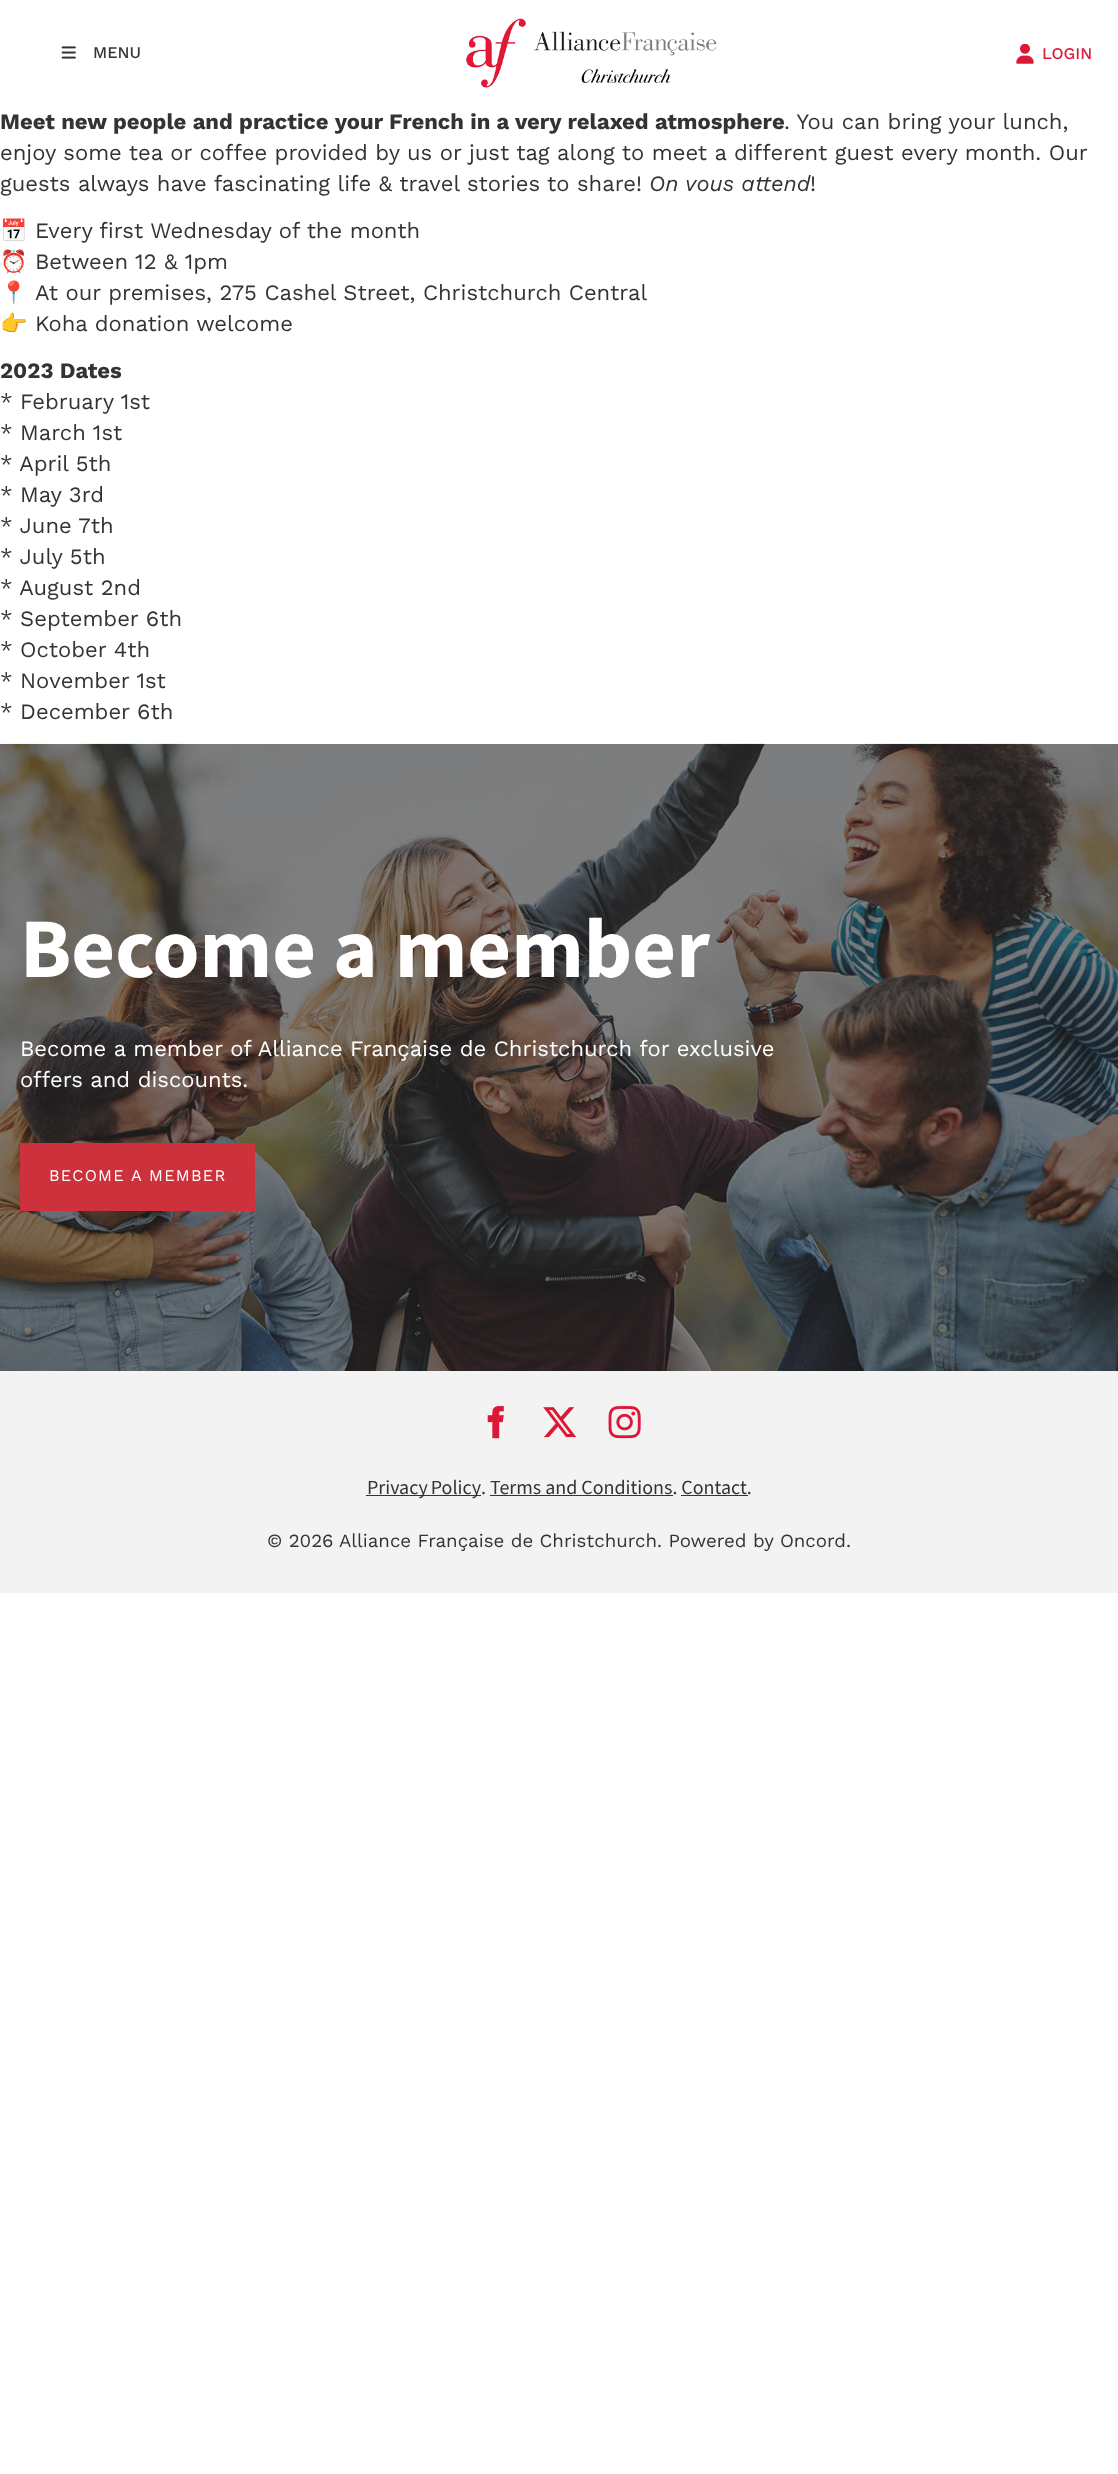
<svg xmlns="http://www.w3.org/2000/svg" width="1118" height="2474">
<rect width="100%" height="100%" fill="#fff"/>
<image x="61" y="46" width="15" height="13" href="media/1.png"/>
<text x="93" y="58" style="font-family:Work Sans;font-size:16.25px;font-weight:500;fill:#333">MENU</text>
<image x="466" y="18" width="251" height="70" href="media/2.png"/>
<image x="1016" y="44" width="18" height="20" href="media/3.png"/>
<text x="1042" y="59" style="font-family:Work Sans;font-size:16.25px;font-weight:500;fill:#dc1836">LOGIN</text>
<text x="0" y="129" style="font-family:Work Sans;font-size:22px;font-weight:bold;fill:#333">Meet new people and practice your French in a very relaxed atmosphere</text>
<text x="784" y="129" style="font-family:Work Sans;font-size:22px;fill:#333">. You can bring your lunch,</text>
<text x="0" y="160" style="font-family:Work Sans;font-size:22px;fill:#333">enjoy some tea or coffee provided by us or just tag along to meet a different guest every month. Our</text>
<text x="0" y="191" style="font-family:Work Sans;font-size:22px;fill:#333">guests always have fascinating life &amp; travel stories to share!</text>
<text x="649" y="191" style="font-family:Work Sans;font-size:22px;font-style:italic;fill:#333">On vous attend</text>
<text x="810" y="191" style="font-family:Work Sans;font-size:22px;fill:#333">!</text>
<text x="0" y="238" style="font-family:Noto Color Emoji;font-size:22px;fill:#333">📅</text>
<text x="35" y="238" style="font-family:Work Sans;font-size:22px;fill:#333">Every first Wednesday of the month</text>
<text x="0" y="269" style="font-family:Noto Color Emoji;font-size:22px;fill:#333">⏰</text>
<text x="35" y="269" style="font-family:Work Sans;font-size:22px;fill:#333">Between 12 &amp; 1pm</text>
<text x="0" y="300" style="font-family:Noto Color Emoji;font-size:22px;fill:#333">📍</text>
<text x="35" y="300" style="font-family:Work Sans;font-size:22px;fill:#333">At our premises, 275 Cashel Street, Christchurch Central</text>
<text x="0" y="331" style="font-family:Noto Color Emoji;font-size:22px;fill:#333">👉</text>
<text x="35" y="331" style="font-family:Work Sans;font-size:22px;fill:#333">Koha donation welcome</text>
<text x="0" y="378" style="font-family:Work Sans;font-size:22px;font-weight:bold;fill:#333">2023 Dates</text>
<text x="0" y="409" style="font-family:Work Sans;font-size:22px;fill:#333">* February 1st</text>
<text x="0" y="440" style="font-family:Work Sans;font-size:22px;fill:#333">* March 1st</text>
<text x="0" y="471" style="font-family:Work Sans;font-size:22px;fill:#333">* April 5th</text>
<text x="0" y="502" style="font-family:Work Sans;font-size:22px;fill:#333">* May 3rd</text>
<text x="0" y="533" style="font-family:Work Sans;font-size:22px;fill:#333">* June 7th</text>
<text x="0" y="564" style="font-family:Work Sans;font-size:22px;fill:#333">* July 5th</text>
<text x="0" y="595" style="font-family:Work Sans;font-size:22px;fill:#333">* August 2nd</text>
<text x="0" y="626" style="font-family:Work Sans;font-size:22px;fill:#333">* September 6th</text>
<text x="0" y="657" style="font-family:Work Sans;font-size:22px;fill:#333">* October 4th</text>
<text x="0" y="688" style="font-family:Work Sans;font-size:22px;fill:#333">* November 1st</text>
<text x="0" y="719" style="font-family:Work Sans;font-size:22px;fill:#333">* December 6th</text>
<image x="0" y="743" width="1118" height="628" href="media/4.png"/>
<text x="20" y="977" style="font-family:Mada;font-size:84.75px;font-weight:bold;fill:#fff">Become a member</text>
<text x="20" y="1056" style="font-family:Work Sans;font-size:22px;fill:#fff">Become a member of Alliance Française de Christchurch for exclusive</text>
<text x="20" y="1087" style="font-family:Work Sans;font-size:22px;fill:#fff">offers and discounts.</text>
<rect x="20" y="1143" width="235" height="68" fill="#cd323c"/>
<text x="49" y="1181" style="font-family:Work Sans;font-size:16.25px;letter-spacing:1.25px;fill:#fff">BECOME</text>
<text x="131" y="1181" style="font-family:Work Sans;font-size:16.25px;letter-spacing:1.25px;fill:#fff">A MEMBER</text>
<rect y="1371" width="1118" height="222" fill="#f3f3f3"/>
<image x="487" y="1406" width="17" height="33" href="media/5.png"/>
<image x="543" y="1407" width="33" height="31" href="media/6.png"/>
<image x="608" y="1406" width="33" height="33" href="media/7.png"/>
<rect x="366" y="1495" width="115" height="1" fill="#333"/>
<text x="367" y="1494" word-spacing="-1" style="font-family:Mada;font-size:20px;fill:#333">Privacy Policy</text>
<text x="481" y="1494" style="font-family:Mada;font-size:20px;fill:#333">. Terms and Conditions. Contact.</text>
<rect x="490" y="1495" width="183" height="1" fill="#333"/>
<rect x="681" y="1495" width="67" height="1" fill="#333"/>
<text x="267" y="1547" style="font-family:Work Sans;font-size:18.7px;fill:#333">© 2026</text>
<text x="339" y="1547" style="font-family:Work Sans;font-size:18.7px;fill:#333">Alliance Française de Christchurch. Powered by Oncord.</text>
</svg>
